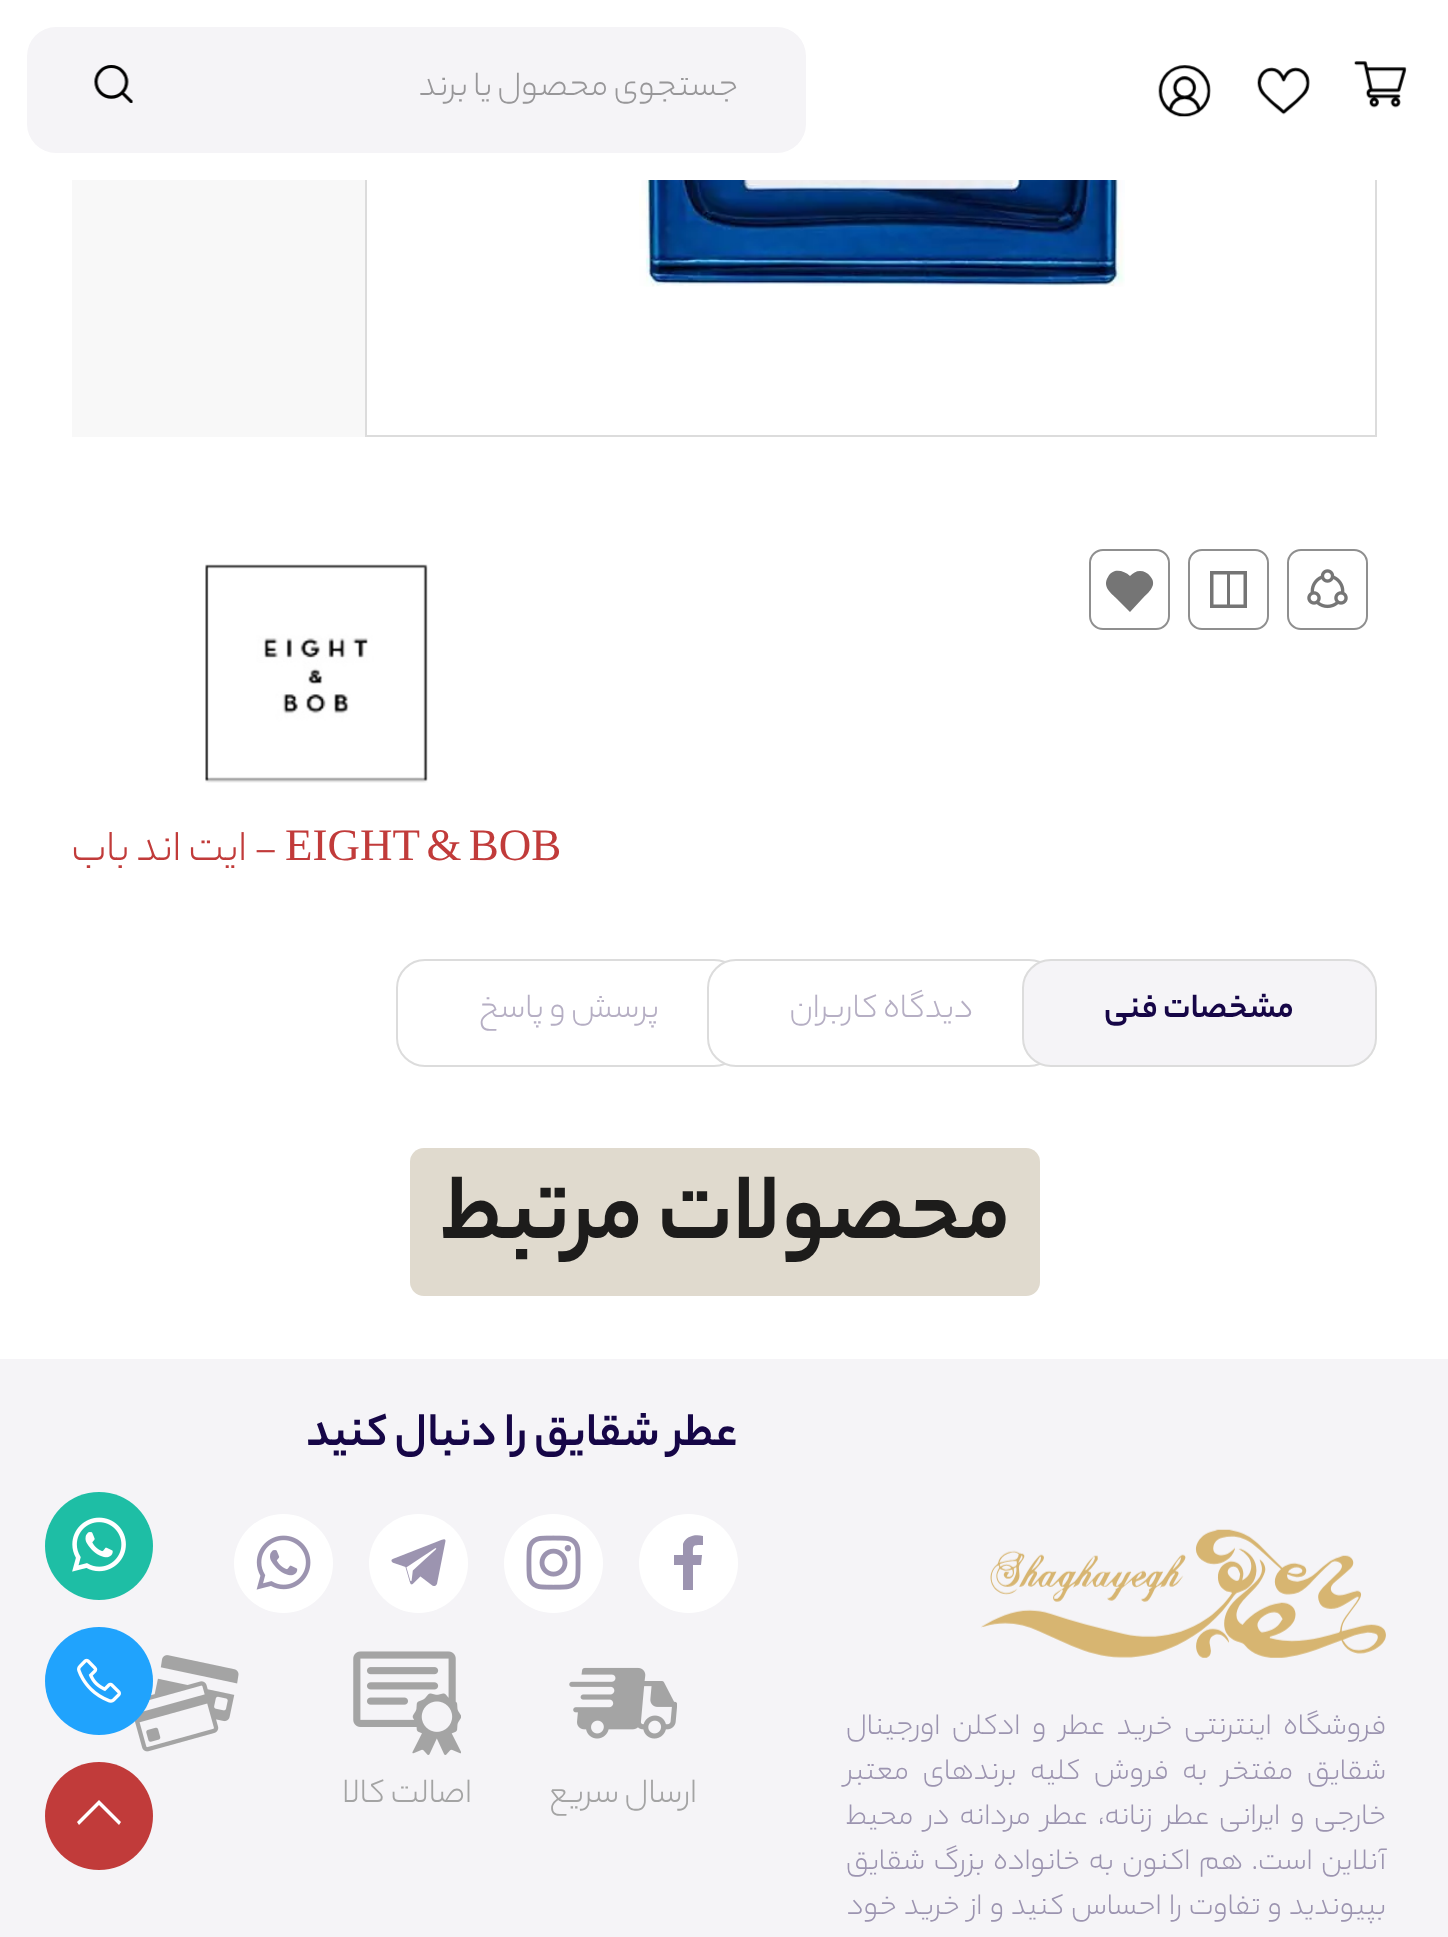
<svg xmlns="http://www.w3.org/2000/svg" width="1448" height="1937">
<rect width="100%" height="100%" fill="#fff"/>
<rect x="366" y="-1" width="1010" height="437" fill="none" stroke="#dcdcdc" stroke-width="2"/>
<rect x="365" width="1012" height="180" fill="#fff"/>
<image x="1354" y="61" width="53" height="47" href="media/1.png"/>
<image x="1257" y="67" width="53" height="48" href="media/2.png"/>
<image x="1158" y="65" width="53" height="52" href="media/3.png"/>
<rect x="27" y="27" width="779" height="126" rx="29" fill="#f5f4f7"/>
<text x="738" y="95" style="font-family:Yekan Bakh;font-size:36px;font-weight:300;direction:rtl;fill:#989799">جستجوی محصول یا برند</text>
<image x="94" y="65" width="39" height="38" href="media/4.png"/>
<image x="639" y="180" width="486" height="107" href="media/5.png"/>
<rect x="72" y="180" width="293" height="257" fill="#f8f8f8"/>
<rect x="1288" y="550" width="79" height="79" rx="13" fill="none" stroke="#8f8f8f" stroke-width="2"/>
<image x="1307" y="569" width="41" height="40" href="media/6.png"/>
<rect x="1189" y="550" width="79" height="79" rx="13" fill="none" stroke="#8f8f8f" stroke-width="2"/>
<path d="M1210 571v37h37v-37zm3.5 3.5h13.5v30h-13.5zm16.5 0h13.5v30h-13.5z" fill="#757575"/>
<rect x="1090" y="550" width="79" height="79" rx="13" fill="none" stroke="#8f8f8f" stroke-width="2"/>
<path d="M1140 571c-4 0-7 2-10 5c-4-4-10-6-15-5c-3 1-6 3-7 6c-6 10 3 16 9 22l13 13l12-13c7-7 16-14 8-23c-2-3-6-5-10-5z" fill="#757575"/>
<image x="205" y="564" width="223" height="219" href="media/7.png"/>
<text x="285" y="860" word-spacing="-4" style="font-family:Liberation Serif;font-size:45px;fill:#c13b3a">EIGHT &amp; BOB</text>
<text x="277" y="860" style="font-family:Yekan Bakh;font-size:45px;font-weight:300;direction:rtl;fill:#c13b3a">- ایت اند باب</text>
<rect x="397" y="960" width="345" height="106" rx="28" fill="none" stroke="#dcdcdc" stroke-width="2"/>
<rect x="708" y="960" width="349" height="106" rx="28" fill="#fff" stroke="#dcdcdc" stroke-width="2"/>
<rect x="1023" y="960" width="353" height="106" rx="28" fill="#f5f4f7" stroke="#dcdcdc" stroke-width="2"/>
<text x="1294" y="1017" style="font-family:Yekan Bakh;font-size:36px;font-weight:bold;direction:rtl;fill:#160647">مشخصات فنی</text>
<text x="973" y="1017" style="font-family:Yekan Bakh;font-size:36px;font-weight:300;direction:rtl;fill:#b6afc4">دیدگاه کاربران</text>
<text x="659" y="1017" style="font-family:Yekan Bakh;font-size:36px;font-weight:300;direction:rtl;fill:#b6afc4">پرسش و پاسخ</text>
<rect x="410" y="1148" width="630" height="148" rx="14" fill="#e0dace"/>
<text x="1011" y="1238" style="font-family:Yekan Bakh;font-size:99px;font-weight:bold;direction:rtl;fill:#1d1c1b">محصولات مرتبط</text>
<rect y="1359" width="1448" height="578" fill="#f5f4f7"/>
<image x="981" y="1529" width="405" height="129" href="media/8.png"/>
<text x="1386" y="1734" word-spacing="6.75" style="font-family:Yekan Bakh;font-size:31.5px;font-weight:300;direction:rtl;fill:#9c94b0">فروشگاه اینترنتی خرید عطر و ادکلن اورجینال</text>
<text x="1386" y="1779" word-spacing="8.75" style="font-family:Yekan Bakh;font-size:31.5px;font-weight:300;direction:rtl;fill:#9c94b0">شقایق مفتخر به فروش کلیه برندهای معتبر</text>
<text x="1386" y="1824" word-spacing="5" style="font-family:Yekan Bakh;font-size:31.5px;font-weight:300;direction:rtl;fill:#9c94b0">خارجی و ایرانی عطر زنانه، عطر مردانه در محیط</text>
<text x="1386" y="1869" word-spacing="3.75" style="font-family:Yekan Bakh;font-size:31.5px;font-weight:300;direction:rtl;fill:#9c94b0">آنلاین است. هم‌ اکنون به خانواده بزرگ شقایق</text>
<text x="1386" y="1914" word-spacing="2.25" style="font-family:Yekan Bakh;font-size:31.5px;font-weight:300;direction:rtl;fill:#9c94b0">بپیوندید و تفاوت را احساس کنید و از خرید خود</text>
<text x="738" y="1445" style="font-family:Yekan Bakh;font-size:49.5px;font-weight:bold;direction:rtl;fill:#160647">عطر شقایق را دنبال کنید</text>
<circle cx="688.5" cy="1563.5" r="49.5" fill="#fff"/>
<path d="M693 1590v-25h8l1-10h-9c0-10-1-10 10-10v-9c-8-2-17 0-20 8v11h-9v10h9v25z" fill="#9c94b0"/>
<circle cx="553.5" cy="1563.5" r="49.5" fill="#fff"/>
<image x="526" y="1535" width="55" height="55" href="media/9.png"/>
<circle cx="418.5" cy="1563.5" r="49.5" fill="#fff"/>
<image x="391" y="1539" width="55" height="47" href="media/10.png"/>
<circle cx="283.5" cy="1563.5" r="49.5" fill="#fff"/>
<image x="256" y="1535" width="55" height="55" href="media/11.png"/>
<image x="134" y="1655" width="105" height="97" href="media/12.png"/>
<image x="569" y="1667" width="108" height="72" href="media/13.png"/>
<text x="697" y="1802" style="font-family:Yekan Bakh;font-size:36px;font-weight:300;direction:rtl;fill:#a4a4a4">ارسال سریع</text>
<image x="353" y="1651" width="108" height="104" href="media/14.png"/>
<text x="472" y="1802" style="font-family:Yekan Bakh;font-size:36px;font-weight:300;direction:rtl;fill:#a4a4a4">اصالت کالا</text>
<circle cx="99" cy="1546" r="54" fill="#1ebea5"/>
<image x="72" y="1517" width="54" height="55" href="media/15.png"/>
<circle cx="99" cy="1681" r="54" fill="#20a3fd"/>
<image x="77" y="1658" width="44" height="45" href="media/16.png"/>
<circle cx="99" cy="1816" r="54" fill="#c13b3a"/>
<path d="M99 1800l-22 22l2 3l20-20l20 20l2-3z" fill="#fff"/>
</svg>
